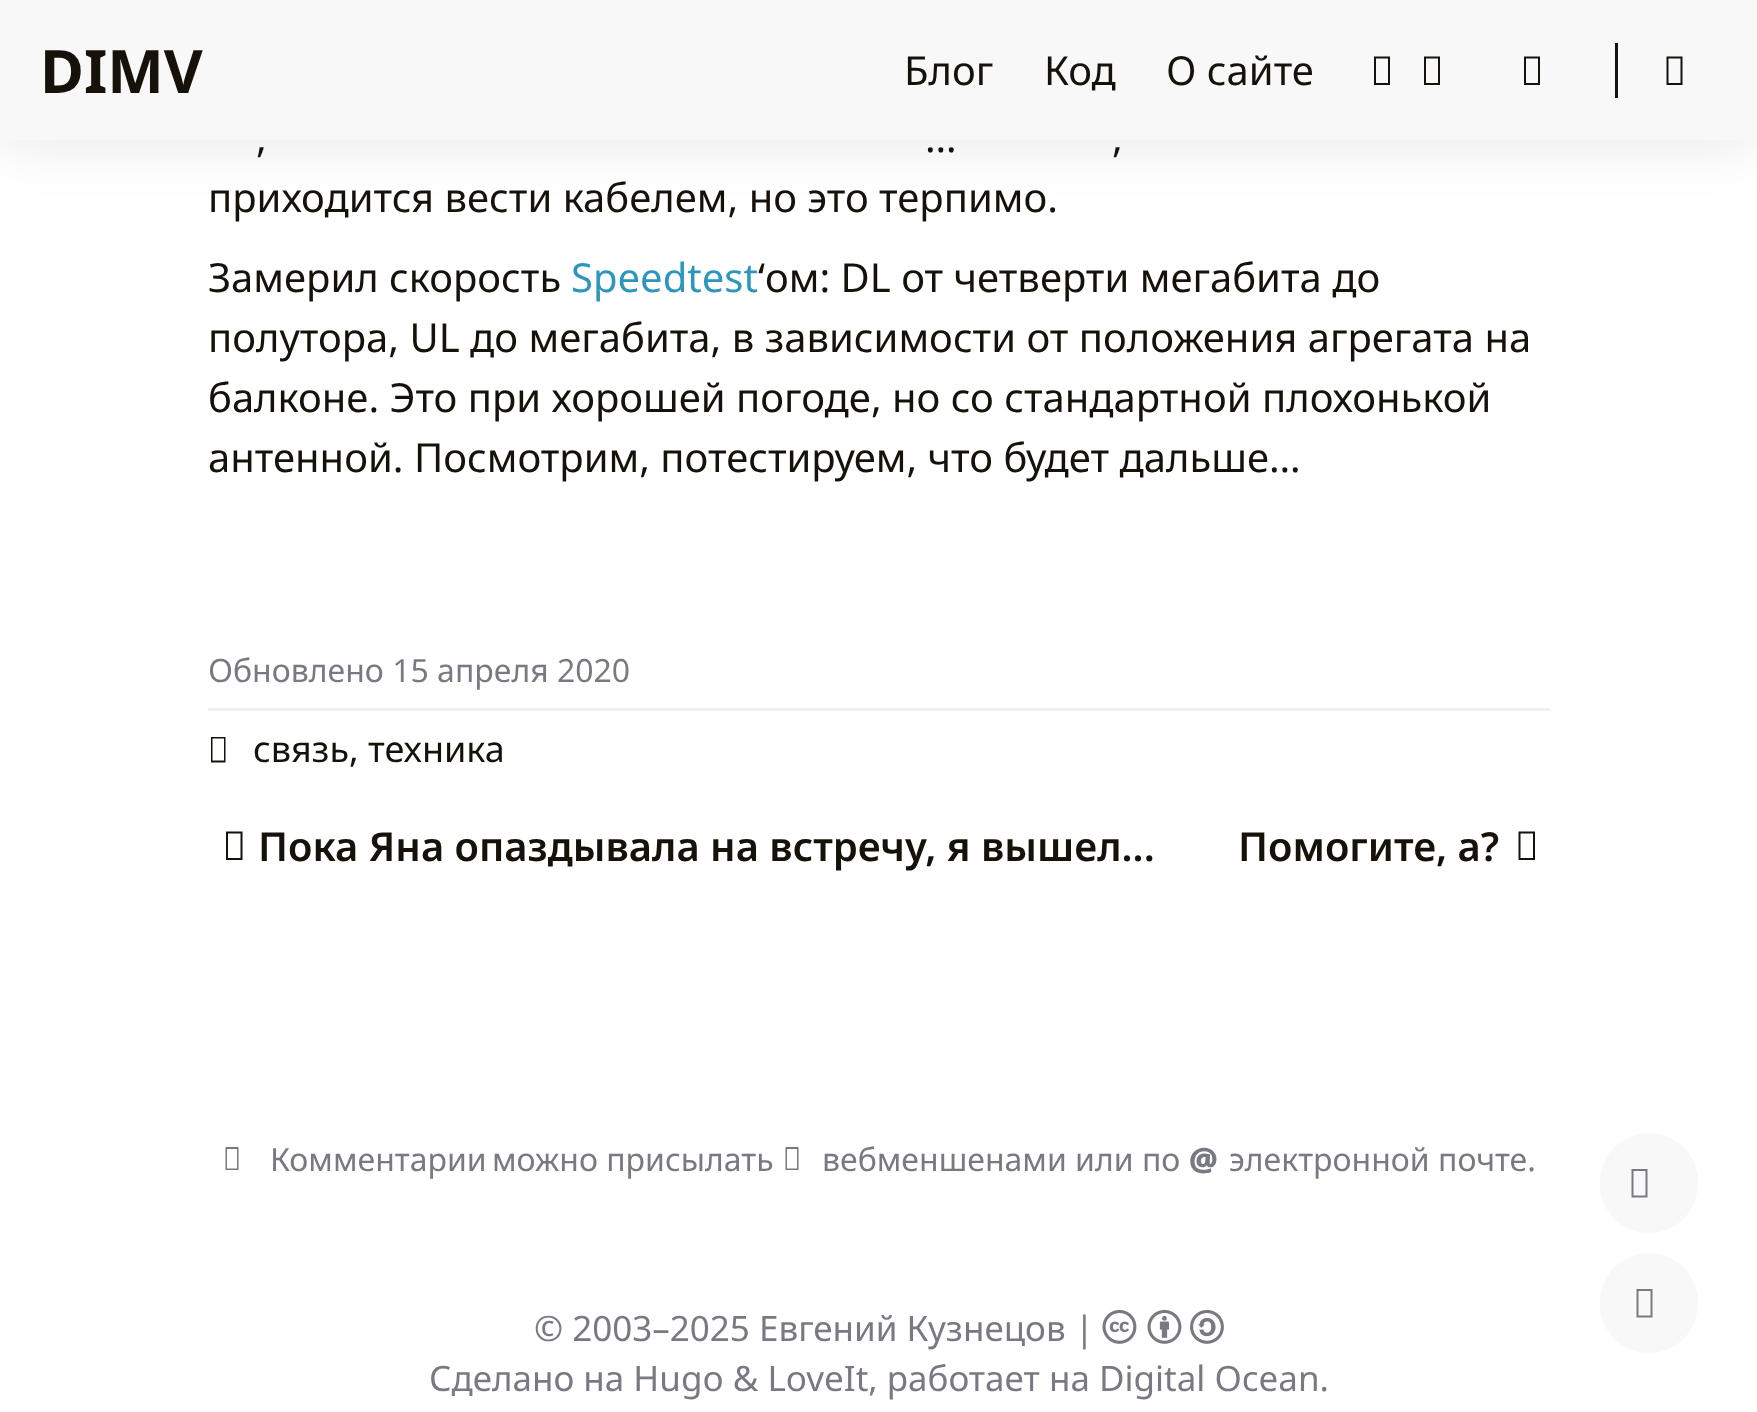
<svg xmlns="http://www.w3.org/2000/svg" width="1757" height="1412">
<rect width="100%" height="100%" fill="#fff"/>
<rect width="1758" height="140" fill="#0000001a" filter="blur(30px)"/>
<rect width="1757" height="140" fill="#f8f8f8"/>
<text x="40" y="93" style="font-family:Noto Sans;font-size:60px;font-weight:bold;fill:#161209">DIMV</text>
<text x="904" y="85" style="font-family:Noto Sans;font-size:40px;fill:#161209">Блог</text>
<text x="1044" y="85" style="font-family:Noto Sans;font-size:40px;fill:#161209">Код</text>
<text x="1166" y="85" style="font-family:Noto Sans;font-size:40px;fill:#161209">О сайте</text>
<path d="M1374 85v-28.5h16v28.5zm2-2h12v-24.5h-12z" fill="#161209"/>
<path d="M1424 85v-28.5h16v28.5zm2-2h12v-24.5h-12z" fill="#161209"/>
<path d="M1524 85v-28.5h16v28.5zm2-2h12v-24.5h-12z" fill="#161209"/>
<rect x="1615" y="43" width="3" height="55" fill="#161209"/>
<path d="M1666.5 85v-28.5h16v28.5zm2-2h12v-24.5h-12z" fill="#161209"/>
<text x="256" y="152" style="font-family:Noto Sans;font-size:40px;fill:#161209">,</text>
<text x="925" y="152" style="font-family:Noto Sans;font-size:40px;fill:#161209">…</text>
<text x="1112" y="152" style="font-family:Noto Sans;font-size:40px;fill:#161209">,</text>
<text x="208" y="212" style="font-family:Noto Sans;font-size:40px;fill:#161209">приходится вести кабелем, но это терпимо.</text>
<text x="208" y="292" style="font-family:Noto Sans;font-size:40px;fill:#161209">Замерил скорость</text>
<text x="571" y="292" style="font-family:Noto Sans;font-size:40px;fill:#2d96bd">Speedtest</text>
<text x="758" y="292" style="font-family:Noto Sans;font-size:40px;fill:#161209">‘ом: DL от четверти мегабита до</text>
<text x="208" y="352" style="font-family:Noto Sans;font-size:40px;fill:#161209">полутора, UL до мегабита, в зависимости от положения агрегата на</text>
<text x="208" y="412" style="font-family:Noto Sans;font-size:40px;fill:#161209">балконе. Это при хорошей погоде, но со стандартной плохонькой</text>
<text x="208" y="472" style="font-family:Noto Sans;font-size:40px;fill:#161209">антенной. Посмотрим, потестируем, что будет дальше…</text>
<rect x="208" y="708" width="1342" height="3" fill="#f0f0f0"/>
<text x="208" y="682" style="font-family:Noto Sans;font-size:32px;fill:#797983">Oбновлено 15 апреля 2020</text>
<path d="M211 762.5v-25.5h14.5v25.5zm1.5-2h11.5v-22h-11.5z" fill="#161209"/>
<text x="253" y="762" style="font-family:Noto Sans;font-size:36px;fill:#161209">связь, техника</text>
<path d="M226 860v-28.5h16.5v28.5zm2-2h12.5v-24.5h-12.5z" fill="#161209"/>
<text x="258" y="861" style="font-family:Noto Sans;font-size:40px;font-weight:600;fill:#161209">Пока Яна опаздывала на встречу, я вышел...</text>
<text x="1238" y="861" style="font-family:Noto Sans;font-size:40px;font-weight:600;fill:#161209">Помогите, а?</text>
<path d="M1518.5 860v-28.5h16.5v28.5zm2-2h12.5v-24.5h-12.5z" fill="#161209"/>
<path d="M225.5 1170v-23h13v23zm1.5-1.5h10v-19.5h-10z" fill="#797983"/>
<text x="270" y="1171" style="font-family:Noto Sans;font-size:32px;fill:#797983">Комментарии</text>
<text x="492" y="1171" style="font-family:Noto Sans;font-size:32px;fill:#797983">можно присылать</text>
<path d="M785.5 1170v-23h13v23zm1.5-1.5h10v-19.5h-10z" fill="#797983"/>
<text x="822" y="1171" style="font-family:Noto Sans;font-size:32px;fill:#797983">вебменшенами или по</text>
<text x="1189" y="1171" style="font-family:Noto Sans;font-size:32px;font-weight:900;fill:#797983">@</text>
<text x="1229" y="1171" style="font-family:Noto Sans;font-size:32px;fill:#797983">электронной почте.</text>
<text x="534" y="1341" style="font-family:Noto Sans;font-size:35px;fill:#797983">© 2003–2025 Евгений Кузнецов |</text>
<image x="1102" y="1309" width="35" height="35" href="media/1.png"/>
<image x="1147" y="1309" width="35" height="35" href="media/2.png"/>
<image x="1190" y="1309" width="34" height="35" href="media/3.png"/>
<text x="429" y="1391" style="font-family:Noto Sans;font-size:35px;fill:#797983">Сделано на Hugo &amp; LoveIt, работает на Digital Ocean.</text>
<rect x="1600" y="1133" width="98" height="100" rx="49" fill="#f8f8f8"/>
<path d="M1631.5 1197.5v-28.5h16v28.5zm2-2h12v-24.5h-12z" fill="#797983"/>
<rect x="1600" y="1253" width="98" height="100" rx="49" fill="#f8f8f8"/>
<path d="M1636.5 1317.5v-28.5h16v28.5zm2-2h12v-24.5h-12z" fill="#797983"/>
</svg>
